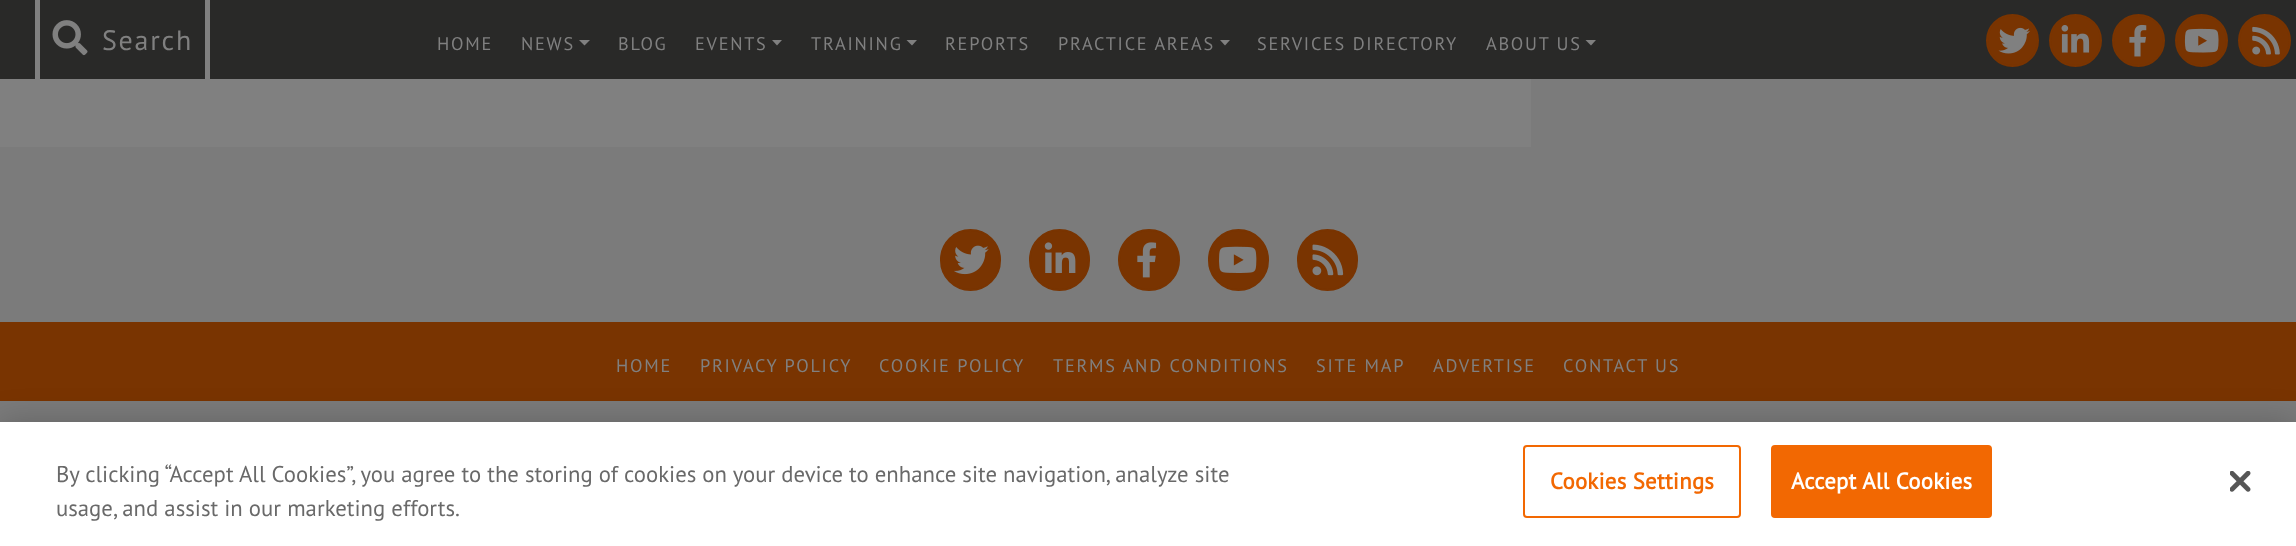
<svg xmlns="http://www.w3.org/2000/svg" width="2296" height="546">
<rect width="100%" height="100%" fill="#7b7b7b"/>
<rect width="2296" height="79" fill="#292928"/>
<rect x="205" width="5" height="79" fill="#808080"/>
<rect x="35" width="5" height="79" fill="#808080"/>
<image x="52" y="20" width="36" height="36" href="media/1.png"/>
<text x="102" y="50" style="font-family:PT Sans;font-size:28px;letter-spacing:1.75px;fill:#808080">Search</text>
<text x="437" y="50" style="font-family:PT Sans;font-size:18.25px;letter-spacing:1.75px;fill:#808080">HOME</text>
<text x="521" y="50" style="font-family:PT Sans;font-size:18.25px;letter-spacing:1.75px;fill:#808080">NEWS</text>
<path d="M579 40h11l-5.5 5.5z" fill="#808080"/>
<text x="618" y="50" style="font-family:PT Sans;font-size:18.25px;letter-spacing:1.75px;fill:#808080">BLOG</text>
<text x="695" y="50" style="font-family:PT Sans;font-size:18.25px;letter-spacing:1.75px;fill:#808080">EVENTS</text>
<path d="M772 40h10l-5 5.5z" fill="#808080"/>
<text x="811" y="50" style="font-family:PT Sans;font-size:18.25px;letter-spacing:1.75px;fill:#808080">TRAINING</text>
<path d="M906.5 40h10.5l-5 5.5z" fill="#808080"/>
<text x="945" y="50" style="font-family:PT Sans;font-size:18.25px;letter-spacing:1.75px;fill:#808080">REPORTS</text>
<text x="1058" y="50" style="font-family:PT Sans;font-size:18.25px;letter-spacing:1.75px;fill:#808080">PRACTICE AREAS</text>
<path d="M1220 40h10l-5 5.5z" fill="#808080"/>
<text x="1257" y="50" style="font-family:PT Sans;font-size:18.25px;letter-spacing:1.75px;fill:#808080">SERVICES DIRECTORY</text>
<text x="1486" y="50" style="font-family:PT Sans;font-size:18.25px;letter-spacing:1.75px;fill:#808080">ABOUT US</text>
<path d="M1585.5 40h10.5l-5 5.5z" fill="#808080"/>
<circle cx="2012.5" cy="40.5" r="25.5" fill="#793401" stroke="#793401" stroke-width="2"/>
<image x="1998" y="27" width="32" height="27" href="media/2.png"/>
<circle cx="2075.5" cy="40.5" r="25.5" fill="#793401" stroke="#793401" stroke-width="2"/>
<image x="2061" y="25" width="29" height="28" href="media/3.png"/>
<circle cx="2138.5" cy="40.5" r="25.5" fill="#793401" stroke="#793401" stroke-width="2"/>
<image x="2129" y="24" width="18" height="33" href="media/4.png"/>
<circle cx="2201.5" cy="40.5" r="25.5" fill="#793401" stroke="#793401" stroke-width="2"/>
<image x="2184" y="28" width="35" height="25" href="media/5.png"/>
<circle cx="2264.5" cy="40.5" r="25.5" fill="#793401" stroke="#793401" stroke-width="2"/>
<image x="2252" y="26" width="28" height="29" href="media/6.png"/>
<rect y="79" width="1531" height="68" fill="#808080"/>
<rect x="941" y="230" width="59" height="60" rx="29.5" fill="#793401" stroke="#793401" stroke-width="2"/>
<image x="954" y="245" width="35" height="30" href="media/7.png"/>
<rect x="1030" y="230" width="59" height="60" rx="29.5" fill="#793401" stroke="#793401" stroke-width="2"/>
<image x="1044" y="242" width="32" height="31" href="media/8.png"/>
<circle cx="1149" cy="260" r="30" fill="#793401" stroke="#793401" stroke-width="2"/>
<image x="1137" y="242" width="20" height="36" href="media/9.png"/>
<rect x="1209" y="230" width="59" height="60" rx="29.5" fill="#793401" stroke="#793401" stroke-width="2"/>
<image x="1219" y="246" width="38" height="27" href="media/10.png"/>
<rect x="1298" y="230" width="59" height="60" rx="29.5" fill="#793401" stroke="#793401" stroke-width="2"/>
<image x="1312" y="244" width="32" height="32" href="media/11.png"/>
<rect y="322" width="2296" height="79" fill="#793401"/>
<text x="616" y="372" style="font-family:PT Sans;font-size:18.25px;letter-spacing:1.75px;fill:#808080">HOME</text>
<text x="700" y="372" style="font-family:PT Sans;font-size:18.25px;letter-spacing:1.75px;fill:#808080">PRIVACY POLICY</text>
<text x="879" y="372" style="font-family:PT Sans;font-size:18.25px;letter-spacing:1.75px;fill:#808080">COOKIE POLICY</text>
<text x="1053" y="372" style="font-family:PT Sans;font-size:18.25px;letter-spacing:1.75px;fill:#808080">TERMS AND CONDITIONS</text>
<text x="1316" y="372" style="font-family:PT Sans;font-size:18.25px;letter-spacing:1.75px;fill:#808080">SITE MAP</text>
<text x="1433" y="372" style="font-family:PT Sans;font-size:18.25px;letter-spacing:1.75px;fill:#808080">ADVERTISE</text>
<text x="1563" y="372" style="font-family:PT Sans;font-size:18.25px;letter-spacing:1.75px;fill:#808080">CONTACT US</text>
<rect y="422" width="2296" height="124" fill="#00000033" filter="blur(16px)"/>
<rect y="422" width="2296" height="124" fill="#fff"/>
<text x="56" y="482" style="font-family:PT Sans;font-size:22.75px;fill:#696969">By clicking “Accept All Cookies”, you agree to the storing of cookies on your device to enhance site navigation, analyze site</text>
<text x="56" y="516" style="font-family:PT Sans;font-size:22.75px;fill:#696969">usage, and assist in our marketing efforts.</text>
<rect x="1524" y="446" width="216" height="71" rx="3" fill="none" stroke="#f26802" stroke-width="2"/>
<text x="1550" y="489" style="font-family:PT Sans;font-size:22.75px;font-weight:bold;letter-spacing:0.25px;fill:#f26802">Cookies Settings</text>
<rect x="1772" y="446" width="219" height="71" rx="3" fill="#f26802" stroke="#f26802" stroke-width="2"/>
<text x="1791" y="489" style="font-family:PT Sans;font-size:22.75px;font-weight:bold;letter-spacing:0.25px;fill:#fff">Accept All Cookies</text>
<image x="2230" y="471" width="21" height="21" href="media/12.png"/>
</svg>
